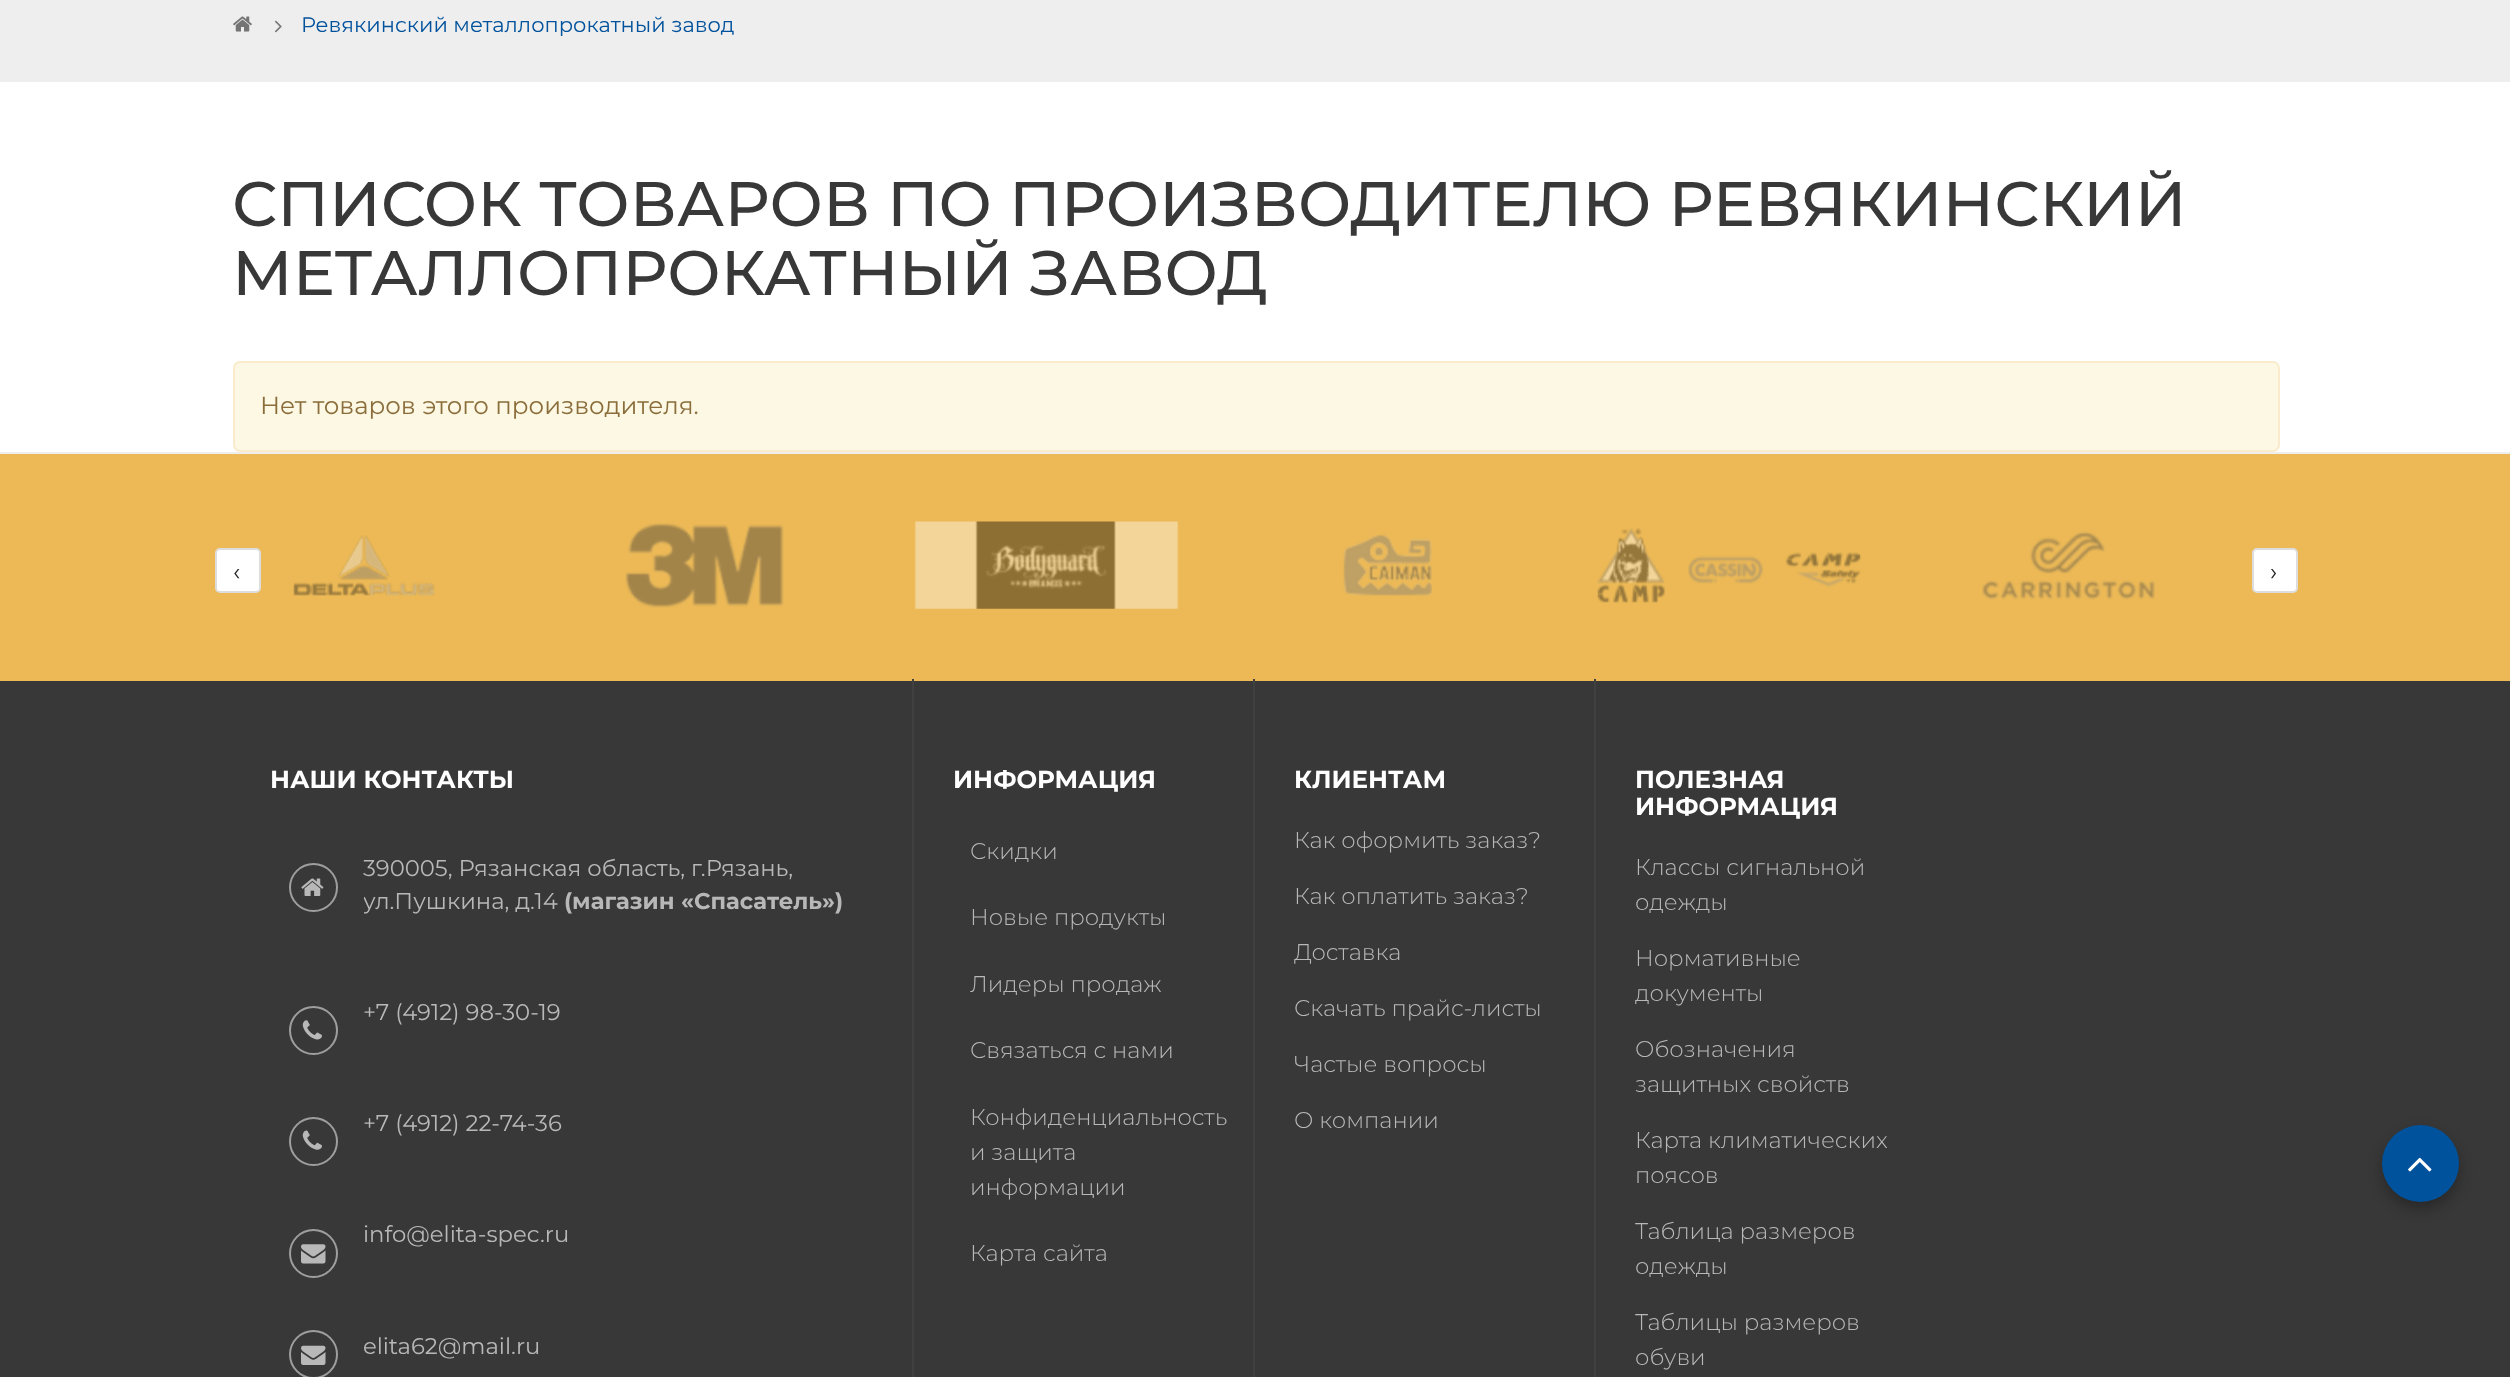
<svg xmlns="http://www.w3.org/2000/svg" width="2510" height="1377">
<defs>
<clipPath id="clip1"><rect x="364" y="852" width="522" height="65"/></clipPath>
</defs>
<rect width="100%" height="100%" fill="#fff"/>
<rect width="2510" height="82" fill="#eee"/>
<image x="233" y="16" width="19" height="16" href="media/1.png"/>
<image x="275" y="20" width="7" height="13" href="media/2.png"/>
<text x="301" y="32" style="font-family:Montserrat;font-size:21px;fill:#00529c">Ревякинский металлопрокатный завод</text>
<text x="232" y="226" style="font-family:Montserrat;font-size:63px;font-weight:500;fill:#383838">СПИСОК ТОВАРОВ ПО ПРОИЗВОДИТЕЛЮ РЕВЯКИНСКИЙ</text>
<text x="232" y="295" style="font-family:Montserrat;font-size:63px;font-weight:500;fill:#383838">МЕТАЛЛОПРОКАТНЫЙ ЗАВОД</text>
<rect x="234" y="362" width="2045" height="89" rx="6" fill="#fcf8e3" stroke="#faebcc" stroke-width="2"/>
<text x="260" y="414" style="font-family:Montserrat;font-size:24.5px;fill:#8a6d3b">Нет товаров этого производителя.</text>
<rect y="681" width="2510" height="696" fill="#383838"/>
<rect y="454" width="2510" height="227" fill="#ecb956"/>
<rect y="452" width="2510" height="2" fill="#eee"/>
<image x="293" y="535" width="142" height="61" href="media/3.png"/>
<image x="625" y="523" width="159" height="85" href="media/4.png"/>
<image x="914" y="521" width="265" height="88" href="media/5.png"/>
<image x="1343" y="534" width="89" height="62" href="media/6.png"/>
<image x="1597" y="528" width="264" height="75" href="media/7.png"/>
<image x="1982" y="531" width="173" height="69" href="media/8.png"/>
<rect x="216" y="549" width="44" height="43" rx="4" fill="#fff" stroke="#ddd" stroke-width="2"/>
<text x="233" y="580" style="font-family:Montserrat;font-size:24.5px;fill:#262626">‹</text>
<rect x="2253" y="549" width="44" height="43" rx="4" fill="#fff" stroke="#ddd" stroke-width="2"/>
<text x="2270" y="580" style="font-family:Montserrat;font-size:24.5px;fill:#262626">›</text>
<rect x="912" y="679" width="2" height="698" fill="#404040"/>
<text x="270" y="788" style="font-family:Montserrat;font-size:24.5px;font-weight:bold;fill:#fff">НАШИ КОНТАКТЫ</text>
<circle cx="313.5" cy="887.5" r="23.5" fill="none" stroke="#9e9e9e" stroke-width="2"/>
<image x="301" y="878" width="23" height="18" href="media/9.png"/>
<text x="363" y="876" style="font-family:Montserrat;font-size:22.75px;fill:#b8b8b8">390005, Рязанская область, г.Рязань,</text>
<g clip-path="url(#clip1)">
<text x="363" y="909" style="font-family:Montserrat;font-size:22.75px;fill:#b8b8b8">ул.Пушкина, д.14</text>
</g>
<text x="564" y="909" style="font-family:Montserrat;font-size:22.75px;font-weight:bold;fill:#b8b8b8">(магазин «Спасатель»)</text>
<circle cx="313.5" cy="1030.5" r="23.5" fill="none" stroke="#9e9e9e" stroke-width="2"/>
<image x="302" y="1020" width="20" height="20" href="media/10.png"/>
<text x="363" y="1020" style="font-family:Montserrat;font-size:22.75px;fill:#b8b8b8">+7 (4912) 98-30-19</text>
<circle cx="313.5" cy="1141.5" r="23.5" fill="none" stroke="#9e9e9e" stroke-width="2"/>
<image x="302" y="1130" width="20" height="20" href="media/11.png"/>
<text x="363" y="1131" style="font-family:Montserrat;font-size:22.75px;fill:#b8b8b8">+7 (4912) 22-74-36</text>
<circle cx="313.5" cy="1253.5" r="23.5" fill="none" stroke="#9e9e9e" stroke-width="2"/>
<image x="301" y="1244" width="25" height="20" href="media/12.png"/>
<text x="363" y="1242" style="font-family:Montserrat;font-size:22.75px;fill:#b8b8b8">info@elita-spec.ru</text>
<circle cx="313.5" cy="1354.5" r="23.5" fill="none" stroke="#9e9e9e" stroke-width="2"/>
<image x="301" y="1345" width="25" height="20" href="media/13.png"/>
<text x="363" y="1354" style="font-family:Montserrat;font-size:22.75px;fill:#b8b8b8">elita62@mail.ru</text>
<rect x="1253" y="679" width="2" height="698" fill="#404040"/>
<text x="953" y="788" style="font-family:Montserrat;font-size:24.5px;font-weight:bold;fill:#fff">ИНФОРМАЦИЯ</text>
<text x="970" y="859" style="font-family:Montserrat;font-size:22.75px;font-weight:300;fill:#b8b8b8">Скидки</text>
<text x="970" y="925" style="font-family:Montserrat;font-size:22.75px;font-weight:300;fill:#b8b8b8">Новые продукты</text>
<text x="970" y="992" style="font-family:Montserrat;font-size:22.75px;font-weight:300;fill:#b8b8b8">Лидеры продаж</text>
<text x="970" y="1058" style="font-family:Montserrat;font-size:22.75px;font-weight:300;fill:#b8b8b8">Связаться с нами</text>
<text x="970" y="1125" style="font-family:Montserrat;font-size:22.75px;font-weight:300;fill:#b8b8b8">Конфиденциальность</text>
<text x="970" y="1160" style="font-family:Montserrat;font-size:22.75px;font-weight:300;fill:#b8b8b8">и защита</text>
<text x="970" y="1195" style="font-family:Montserrat;font-size:22.75px;font-weight:300;fill:#b8b8b8">информации</text>
<text x="970" y="1261" style="font-family:Montserrat;font-size:22.75px;font-weight:300;fill:#b8b8b8">Карта сайта</text>
<rect x="1594" y="679" width="2" height="698" fill="#404040"/>
<text x="1294" y="788" style="font-family:Montserrat;font-size:24.5px;font-weight:bold;fill:#fff">КЛИЕНТАМ</text>
<text x="1294" y="848" style="font-family:Montserrat;font-size:22.75px;font-weight:300;fill:#b8b8b8">Как оформить заказ?</text>
<text x="1294" y="904" style="font-family:Montserrat;font-size:22.75px;font-weight:300;fill:#b8b8b8">Как оплатить заказ?</text>
<text x="1294" y="960" style="font-family:Montserrat;font-size:22.75px;font-weight:300;fill:#b8b8b8">Доставка</text>
<text x="1294" y="1016" style="font-family:Montserrat;font-size:22.75px;font-weight:300;fill:#b8b8b8">Скачать прайс-листы</text>
<text x="1294" y="1072" style="font-family:Montserrat;font-size:22.75px;font-weight:300;fill:#b8b8b8">Частые вопросы</text>
<text x="1294" y="1128" style="font-family:Montserrat;font-size:22.75px;font-weight:300;fill:#b8b8b8">О компании</text>
<text x="1635" y="788" style="font-family:Montserrat;font-size:24.5px;font-weight:bold;fill:#fff">ПОЛЕЗНАЯ</text>
<text x="1635" y="815" style="font-family:Montserrat;font-size:24.5px;font-weight:bold;fill:#fff">ИНФОРМАЦИЯ</text>
<text x="1635" y="875" style="font-family:Montserrat;font-size:22.75px;font-weight:300;fill:#b8b8b8">Классы сигнальной</text>
<text x="1635" y="910" style="font-family:Montserrat;font-size:22.75px;font-weight:300;fill:#b8b8b8">одежды</text>
<text x="1635" y="966" style="font-family:Montserrat;font-size:22.75px;font-weight:300;fill:#b8b8b8">Нормативные</text>
<text x="1635" y="1001" style="font-family:Montserrat;font-size:22.75px;font-weight:300;fill:#b8b8b8">документы</text>
<text x="1635" y="1057" style="font-family:Montserrat;font-size:22.75px;font-weight:300;fill:#b8b8b8">Обозначения</text>
<text x="1635" y="1092" style="font-family:Montserrat;font-size:22.75px;font-weight:300;fill:#b8b8b8">защитных свойств</text>
<text x="1635" y="1148" style="font-family:Montserrat;font-size:22.75px;font-weight:300;fill:#b8b8b8">Карта климатических</text>
<text x="1635" y="1183" style="font-family:Montserrat;font-size:22.75px;font-weight:300;fill:#b8b8b8">поясов</text>
<text x="1635" y="1239" style="font-family:Montserrat;font-size:22.75px;font-weight:300;fill:#b8b8b8">Таблица размеров</text>
<text x="1635" y="1274" style="font-family:Montserrat;font-size:22.75px;font-weight:300;fill:#b8b8b8">одежды</text>
<text x="1635" y="1330" style="font-family:Montserrat;font-size:22.75px;font-weight:300;fill:#b8b8b8">Таблицы размеров</text>
<text x="1635" y="1365" style="font-family:Montserrat;font-size:22.75px;font-weight:300;fill:#b8b8b8">обуви</text>
<rect x="2382" y="1132" width="77" height="77" rx="38.5" fill="#00000047" filter="blur(7px)"/>
<circle cx="2420.5" cy="1163.5" r="38.5" fill="#00529c"/>
<image x="2408" y="1157" width="24" height="15" href="media/14.png"/>
</svg>
